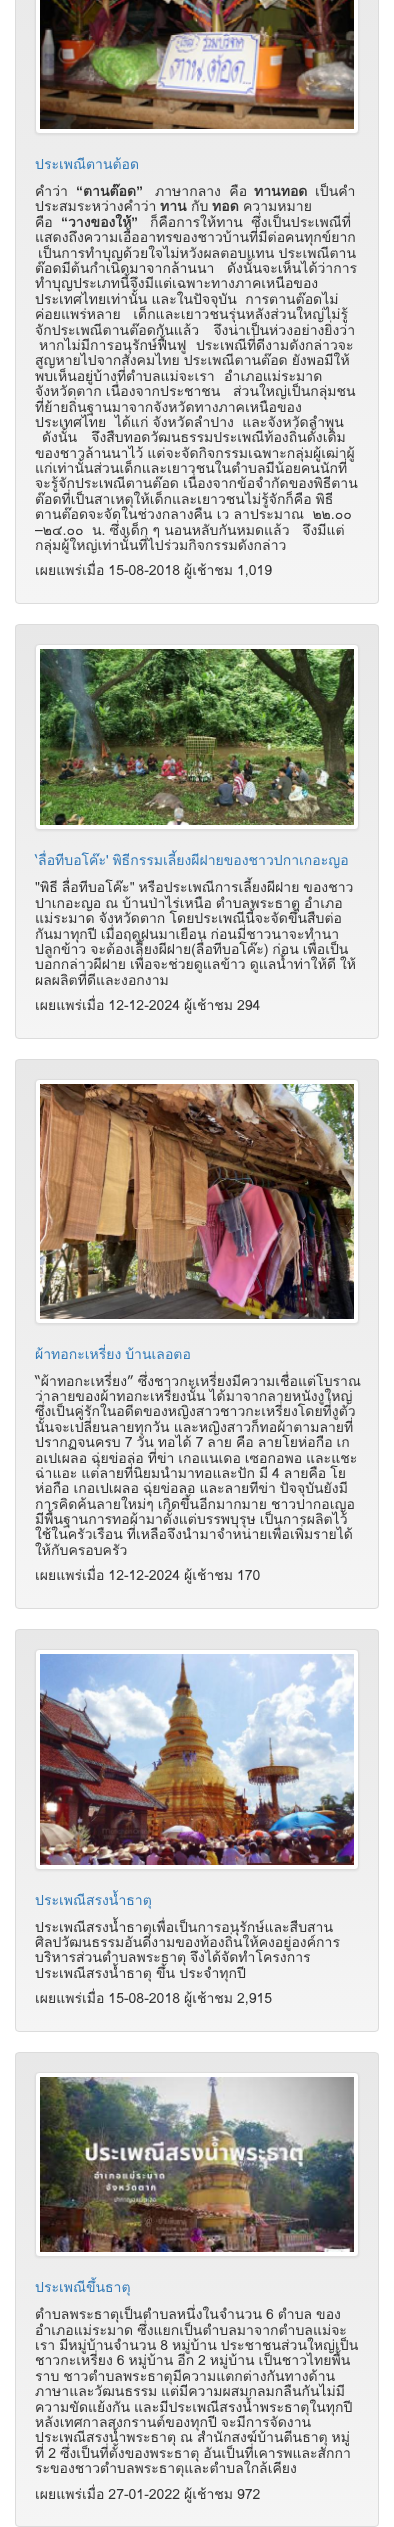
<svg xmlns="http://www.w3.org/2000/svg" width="394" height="2527">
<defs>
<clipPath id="clip1"><rect x="15" y="-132" width="364" height="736" rx="4"/></clipPath>
<linearGradient id="g1" gradientUnits="userSpaceOnUse" x1="197" y1="-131" x2="197" y2="603"><stop offset="0" stop-color="#e8e8e8"/><stop offset="1" stop-color="#f5f5f5"/></linearGradient>
<clipPath id="clip2"><rect x="15" y="624" width="364" height="415" rx="4"/></clipPath>
<linearGradient id="g2" gradientUnits="userSpaceOnUse" x1="197" y1="625" x2="197" y2="1038"><stop offset="0" stop-color="#e8e8e8"/><stop offset="1" stop-color="#f5f5f5"/></linearGradient>
<clipPath id="clip3"><rect x="15" y="1059" width="364" height="550" rx="4"/></clipPath>
<linearGradient id="g3" gradientUnits="userSpaceOnUse" x1="197" y1="1060" x2="197" y2="1608"><stop offset="0" stop-color="#e8e8e8"/><stop offset="1" stop-color="#f5f5f5"/></linearGradient>
<clipPath id="clip4"><rect x="15" y="1629" width="364" height="403" rx="4"/></clipPath>
<linearGradient id="g4" gradientUnits="userSpaceOnUse" x1="197" y1="1630" x2="197" y2="2031"><stop offset="0" stop-color="#e8e8e8"/><stop offset="1" stop-color="#f5f5f5"/></linearGradient>
<clipPath id="clip5"><rect x="15" y="2052" width="364" height="475" rx="4"/></clipPath>
<linearGradient id="g5" gradientUnits="userSpaceOnUse" x1="197" y1="2053" x2="197" y2="2526"><stop offset="0" stop-color="#e8e8e8"/><stop offset="1" stop-color="#f5f5f5"/></linearGradient>
</defs>
<rect width="100%" height="100%" fill="#fff"/>
<g clip-path="url(#clip1)">
<rect x="15" width="364" height="603" fill="url(#g1)"/>
</g>
<rect x="15.5" y="-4.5" width="363" height="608" rx="3.5" fill="none" stroke="#dcdcdc"/>
<rect x="35" y="-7" width="324" height="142" rx="4" fill="#00000012" filter="blur(1px)"/>
<rect x="35.5" y="-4.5" width="323" height="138" rx="3.5" fill="#fff" stroke="#ddd"/>
<image x="40" y="0" width="314" height="129" href="media/1.png"/>
<text x="35" y="169" style="font-family:Loma;font-size:14px;fill:#337ab7">ประเพณีตานต้อด</text>
<text x="35" y="196" style="font-family:Loma;font-size:14px;fill:#333">คำว่า</text>
<text x="76" y="196" style="font-family:Liberation Sans;font-size:14px;font-weight:bold;fill:#333">“</text>
<text x="83" y="196" style="font-family:Loma;font-size:14px;font-weight:bold;fill:#333">ตานต๊อด</text>
<text x="136" y="196" style="font-family:Liberation Sans;font-size:14px;font-weight:bold;fill:#333">”</text>
<text x="155" y="196" word-spacing="-0.5" style="font-family:Loma;font-size:14px;fill:#333" xml:space="preserve">ภาษากลาง  คือ</text>
<text x="254" y="196" style="font-family:Loma;font-size:14px;font-weight:bold;fill:#333">ทานทอด</text>
<text x="315" y="196" style="font-family:Loma;font-size:14px;fill:#333">เป็นคำ</text>
<text x="35" y="211" style="font-family:Loma;font-size:14px;fill:#333">ประสมระหว่างคำว่า</text>
<text x="160" y="211" style="font-family:Loma;font-size:14px;font-weight:bold;fill:#333">ทาน</text>
<text x="191" y="211" style="font-family:Loma;font-size:14px;fill:#333">กับ</text>
<text x="212" y="211" style="font-family:Loma;font-size:14px;font-weight:bold;fill:#333">ทอด</text>
<text x="243" y="211" style="font-family:Loma;font-size:14px;fill:#333">ความหมาย</text>
<text x="35" y="227" style="font-family:Loma;font-size:14px;fill:#333">คือ</text>
<text x="61" y="227" style="font-family:Liberation Sans;font-size:14px;font-weight:bold;fill:#333">“</text>
<text x="68" y="227" style="font-family:Loma;font-size:14px;font-weight:bold;fill:#333">วางของให้</text>
<text x="131" y="227" style="font-family:Liberation Sans;font-size:14px;font-weight:bold;fill:#333">”</text>
<text x="150" y="227" word-spacing="-0.5" style="font-family:Loma;font-size:14px;fill:#333" xml:space="preserve">ก็คือการให้ทาน  ซึ่งเป็นประเพณีที่</text>
<text x="35" y="242" style="font-family:Loma;font-size:14px;fill:#333">แสดงถึงความเอื้ออาทรของชาวบ้านที่มีต่อคนทุกข์ยาก</text>
<text x="38" y="258" word-spacing="-0.5" style="font-family:Loma;font-size:14px;fill:#333">เป็นการทำบุญด้วยใจไม่หวังผลตอบแทน ประเพณีตาน</text>
<text x="35" y="273" word-spacing="-0.5" style="font-family:Loma;font-size:14px;fill:#333" xml:space="preserve">ต๊อดมีต้นกำเนิดมาจากล้านนา   ดังนั้นจะเห็นได้ว่าการ</text>
<text x="35" y="288" style="font-family:Loma;font-size:14px;fill:#333">ทำบุญประเภทนี้จึงมีแต่เฉพาะทางภาคเหนือของ</text>
<text x="35" y="304" word-spacing="-0.5" style="font-family:Loma;font-size:14px;fill:#333" xml:space="preserve">ประเทศไทยเท่านั้น และในปัจจุบัน  การตานต๊อดไม่</text>
<text x="35" y="319" word-spacing="-0.5" style="font-family:Loma;font-size:14px;fill:#333" xml:space="preserve">ค่อยแพร่หลาย   เด็กและเยาวชนรุ่นหลังส่วนใหญ่ไม่รู้</text>
<text x="35" y="335" style="font-family:Loma;font-size:14px;fill:#333" xml:space="preserve">จักประเพณีตานต๊อดกันแล้ว   จึงน่าเป็นห่วงอย่างยิ่งว่า</text>
<text x="39" y="350" style="font-family:Loma;font-size:14px;fill:#333" xml:space="preserve">หากไม่มีการอนุรักษ์ฟื้นฟู  ประเพณีที่ดีงามดังกล่าวจะ</text>
<text x="35" y="365" word-spacing="-0.75" style="font-family:Loma;font-size:14px;fill:#333">สูญหายไปจากสังคมไทย ประเพณีตานต๊อด ยังพอมีให้</text>
<text x="35" y="381" style="font-family:Loma;font-size:14px;fill:#333" xml:space="preserve">พบเห็นอยู่บ้างที่ตำบลแม่จะเรา  อำเภอแม่ระมาด</text>
<text x="35" y="396" word-spacing="-0.5" style="font-family:Loma;font-size:14px;fill:#333" xml:space="preserve">จังหวัดตาก เนื่องจากประชาชน   ส่วนใหญ่เป็นกลุ่มชน</text>
<text x="35" y="412" style="font-family:Loma;font-size:14px;fill:#333">ที่ย้ายถิ่นฐานมาจากจังหวัดทางภาคเหนือของ</text>
<text x="35" y="427" word-spacing="-0.5" style="font-family:Loma;font-size:14px;fill:#333" xml:space="preserve">ประเทศไทย  ได้แก่ จังหวัดลำปาง  และจังหวัดลำพูน</text>
<text x="42" y="442" style="font-family:Loma;font-size:14px;fill:#333" xml:space="preserve">ดังนั้น   จึงสืบทอดวัฒนธรรมประเพณีท้องถิ่นดั้งเดิม</text>
<text x="35" y="458" word-spacing="-0.75" style="font-family:Loma;font-size:14px;fill:#333">ของชาวล้านนาไว้ แต่จะจัดกิจกรรมเฉพาะกลุ่มผู้เฒ่าผู้</text>
<text x="35" y="473" style="font-family:Loma;font-size:14px;fill:#333">แก่เท่านั้นส่วนเด็กและเยาวชนในตำบลมีน้อยคนนักที่</text>
<text x="35" y="488" word-spacing="-0.75" style="font-family:Loma;font-size:14px;fill:#333">จะรู้จักประเพณีตานต๊อด เนื่องจากข้อจำกัดของพิธีตาน</text>
<text x="35" y="504" word-spacing="-0.75" style="font-family:Loma;font-size:14px;fill:#333">ต๊อดที่เป็นสาเหตุให้เด็กและเยาวชนไม่รู้จักก็คือ พิธี</text>
<text x="35" y="519" word-spacing="-0.5" style="font-family:Loma;font-size:14px;fill:#333" xml:space="preserve">ตานต๊อดจะจัดในช่วงกลางคืน เว ลาประมาณ  ๒๒.๐๐</text>
<text x="35" y="535" word-spacing="-0.5" style="font-family:Loma;font-size:14px;fill:#333" xml:space="preserve">–๒๔.๐๐  น. ซึ่งเด็ก ๆ นอนหลับกันหมดแล้ว   จึงมีแต่</text>
<text x="35" y="550" style="font-family:Loma;font-size:14px;fill:#333">กลุ่มผู้ใหญ่เท่านั้นที่ไปร่วมกิจกรรมดังกล่าว</text>
<text x="35" y="575" word-spacing="-0.75" style="font-family:Loma;font-size:14px;fill:#333">เผยแพร่เมื่อ 15-08-2018 ผู้เช้าชม 1,019</text>
<g clip-path="url(#clip2)">
<rect x="15" y="625" width="364" height="413" fill="url(#g2)"/>
</g>
<rect x="15.5" y="624.5" width="363" height="414" rx="3.5" fill="none" stroke="#dcdcdc"/>
<rect x="35" y="645" width="324" height="186" rx="4" fill="#00000012" filter="blur(1px)"/>
<rect x="35.5" y="644.5" width="323" height="185" rx="3.5" fill="#fff" stroke="#ddd"/>
<image x="40" y="649" width="314" height="176" href="media/2.png"/>
<text x="35" y="865" word-spacing="-1" style="font-family:Loma;font-size:14px;fill:#337ab7">‘ลื่อทีบอโค๊ะ' พิธีกรรมเลี้ยงผีฝายของชาวปกาเกอะญอ</text>
<text x="35" y="892" word-spacing="-0.75" style="font-family:Loma;font-size:14px;fill:#333">"พิธี ลื่อทีบอโค๊ะ" หรือประเพณีการเลี้ยงผีฝาย ของชาว</text>
<text x="35" y="908" word-spacing="-0.75" style="font-family:Loma;font-size:14px;fill:#333">ปาเกอะญอ ณ บ้านป่าไร่เหนือ ตำบลพระธาตุ อำเภอ</text>
<text x="35" y="923" word-spacing="-0.5" style="font-family:Loma;font-size:14px;fill:#333">แม่ระมาด จังหวัดตาก โดยประเพณีนี้จะจัดขึ้นสืบต่อ</text>
<text x="35" y="939" word-spacing="-0.75" style="font-family:Loma;font-size:14px;fill:#333">กันมาทุกปี เมื่อฤดูฝนมาเยือน ก่อนมี่ชาวนาจะทำนา</text>
<text x="35" y="954" word-spacing="-0.75" style="font-family:Loma;font-size:14px;fill:#333">ปลูกข้าว จะต้องเลี้ยงผีฝาย(ลื่อทีบอโค๊ะ) ก่อน เพื่อเป็น</text>
<text x="35" y="969" word-spacing="-0.75" style="font-family:Loma;font-size:14px;fill:#333">บอกกล่าวผีฝาย เพื่อจะช่วยดูแลข้าว ดูแลน้ำท่าให้ดี ให้</text>
<text x="35" y="985" style="font-family:Loma;font-size:14px;fill:#333">ผลผลิตที่ดีและงอกงาม</text>
<text x="35" y="1010" word-spacing="-0.75" style="font-family:Loma;font-size:14px;fill:#333">เผยแพร่เมื่อ 12-12-2024 ผู้เช้าชม 294</text>
<g clip-path="url(#clip3)">
<rect x="15" y="1060" width="364" height="548" fill="url(#g3)"/>
</g>
<rect x="15.5" y="1059.5" width="363" height="549" rx="3.5" fill="none" stroke="#dcdcdc"/>
<rect x="35" y="1080" width="324" height="245" rx="4" fill="#00000012" filter="blur(1px)"/>
<rect x="35.5" y="1079.5" width="323" height="244" rx="3.5" fill="#fff" stroke="#ddd"/>
<image x="40" y="1084" width="314" height="235" href="media/3.png"/>
<text x="35" y="1359" word-spacing="-0.75" style="font-family:Loma;font-size:14px;fill:#337ab7">ผ้าทอกะเหรี่ยง บ้านเลอตอ</text>
<text x="35" y="1386" word-spacing="-1" style="font-family:Loma;font-size:14px;fill:#333">“ผ้าทอกะเหรี่ยง” ซึ่งชาวกะเหรี่ยงมีความเชื่อแต่โบราณ</text>
<text x="35" y="1401" word-spacing="-0.75" style="font-family:Loma;font-size:14px;fill:#333">ว่าลายของผ้าทอกะเหรี่ยงนั้น ได้มาจากลายหนังงูใหญ่</text>
<text x="35" y="1416" style="font-family:Loma;font-size:14px;fill:#333">ซึ่งเป็นคู่รักในอดีตของหญิงสาวชาวกะเหรี่ยงโดยที่งูตัว</text>
<text x="35" y="1432" word-spacing="-0.75" style="font-family:Loma;font-size:14px;fill:#333">นั้นจะเปลี่ยนลายทุกวัน และหญิงสาวก็ทอผ้าตามลายที่</text>
<text x="35" y="1447" word-spacing="-0.75" style="font-family:Loma;font-size:14px;fill:#333">ปรากฏจนครบ 7 วัน ทอได้ 7 ลาย คือ ลายโยห่อกือ เก</text>
<text x="35" y="1463" word-spacing="-0.75" style="font-family:Loma;font-size:14px;fill:#333">อเปเผลอ ฉุ่ยข่อล่อ ที่ข่า เกอแนเดอ เซอกอพอ และแชะ</text>
<text x="35" y="1478" word-spacing="-0.75" style="font-family:Loma;font-size:14px;fill:#333">ฉ่าแอะ แต่ลายที่นิยมนำมาทอและปัก มี 4 ลายคือ โย</text>
<text x="35" y="1493" word-spacing="-0.75" style="font-family:Loma;font-size:14px;fill:#333">ห่อกือ เกอเปเผลอ ฉุ่ยข่อลอ และลายทีข่า ปัจจุบันยังมี</text>
<text x="35" y="1509" word-spacing="-0.75" style="font-family:Loma;font-size:14px;fill:#333">การคิดค้นลายใหม่ๆ เกิดขึ้นอีกมากมาย ชาวปากอเญอ</text>
<text x="35" y="1524" word-spacing="-0.75" style="font-family:Loma;font-size:14px;fill:#333">มีพื้นฐานการทอผ้ามาตั้งแต่บรรพบุรุษ เป็นการผลิตไว้</text>
<text x="35" y="1539" word-spacing="-0.75" style="font-family:Loma;font-size:14px;fill:#333">ใช้ในครัวเรือน ที่เหลือจึงนำมาจำหน่ายเพื่อเพิ่มรายได้</text>
<text x="35" y="1555" style="font-family:Loma;font-size:14px;fill:#333">ให้กับครอบครัว</text>
<text x="35" y="1580" word-spacing="-0.75" style="font-family:Loma;font-size:14px;fill:#333">เผยแพร่เมื่อ 12-12-2024 ผู้เช้าชม 170</text>
<g clip-path="url(#clip4)">
<rect x="15" y="1630" width="364" height="401" fill="url(#g4)"/>
</g>
<rect x="15.5" y="1629.5" width="363" height="402" rx="3.5" fill="none" stroke="#dcdcdc"/>
<rect x="35" y="1650" width="324" height="221" rx="4" fill="#00000012" filter="blur(1px)"/>
<rect x="35.5" y="1649.5" width="323" height="220" rx="3.5" fill="#fff" stroke="#ddd"/>
<image x="40" y="1654" width="314" height="211" href="media/4.png"/>
<text x="35" y="1905" style="font-family:Loma;font-size:14px;fill:#337ab7">ประเพณีสรงน้ำธาตุ</text>
<text x="35" y="1932" style="font-family:Loma;font-size:14px;fill:#333">ประเพณีสรงน้ำธาตุเพื่อเป็นการอนุรักษ์และสืบสาน</text>
<text x="35" y="1947" style="font-family:Loma;font-size:14px;fill:#333">ศิลปวัฒนธรรมอันดีงามของท้องถิ่นให้คงอยู่องค์การ</text>
<text x="35" y="1962" word-spacing="-1" style="font-family:Loma;font-size:14px;fill:#333">บริหารส่วนตำบลพระธาตุ จึงได้จัดทำโครงการ</text>
<text x="35" y="1978" word-spacing="-0.5" style="font-family:Loma;font-size:14px;fill:#333">ประเพณีสรงน้ำธาตุ ขึ้น ประจำทุกปี</text>
<text x="35" y="2003" word-spacing="-0.75" style="font-family:Loma;font-size:14px;fill:#333">เผยแพร่เมื่อ 15-08-2018 ผู้เช้าชม 2,915</text>
<g clip-path="url(#clip5)">
<rect x="15" y="2053" width="364" height="473" fill="url(#g5)"/>
</g>
<rect x="15.5" y="2052.5" width="363" height="474" rx="3.5" fill="none" stroke="#dcdcdc"/>
<rect x="35" y="2073" width="324" height="185" rx="4" fill="#00000012" filter="blur(1px)"/>
<rect x="35.5" y="2072.5" width="323" height="184" rx="3.5" fill="#fff" stroke="#ddd"/>
<image x="40" y="2077" width="314" height="175" href="media/5.png"/>
<text x="35" y="2292" style="font-family:Loma;font-size:14px;fill:#337ab7">ประเพณีขึ้นธาตุ</text>
<text x="35" y="2319" word-spacing="-0.75" style="font-family:Loma;font-size:14px;fill:#333">ตำบลพระธาตุเป็นตำบลหนึ่งในจำนวน 6 ตำบล ของ</text>
<text x="35" y="2335" word-spacing="-0.75" style="font-family:Loma;font-size:14px;fill:#333">อำเภอแม่ระมาด ซึ่งแยกเป็นตำบลมาจากตำบลแม่จะ</text>
<text x="35" y="2350" word-spacing="-0.75" style="font-family:Loma;font-size:14px;fill:#333">เรา มีหมู่บ้านจำนวน 8 หมู่บ้าน ประชาชนส่วนใหญ่เป็น</text>
<text x="35" y="2365" word-spacing="-0.75" style="font-family:Loma;font-size:14px;fill:#333">ชาวกะเหรี่ยง 6 หมู่บ้าน อีก 2 หมู่บ้าน เป็นชาวไทยพื้น</text>
<text x="35" y="2381" word-spacing="-0.75" style="font-family:Loma;font-size:14px;fill:#333">ราบ ชาวตำบลพระธาตุมีความแตกต่างกันทางด้าน</text>
<text x="35" y="2396" word-spacing="-1" style="font-family:Loma;font-size:14px;fill:#333">ภาษาและวัฒนธรรม แต่มีความผสมกลมกลืนกันไม่มี</text>
<text x="35" y="2412" word-spacing="-0.75" style="font-family:Loma;font-size:14px;fill:#333">ความขัดแย้งกัน และมีประเพณีสรงน้ำพระธาตุในทุกปี</text>
<text x="35" y="2427" word-spacing="-0.75" style="font-family:Loma;font-size:14px;fill:#333">หลังเทศกาลสงกรานต์ของทุกปี จะมีการจัดงาน</text>
<text x="35" y="2442" word-spacing="-0.75" style="font-family:Loma;font-size:14px;fill:#333">ประเพณีสรงน้ำพระธาตุ ณ สำนักสงฆ์บ้านตีนธาตุ หมู่</text>
<text x="35" y="2458" word-spacing="-0.75" style="font-family:Loma;font-size:14px;fill:#333">ที่ 2 ซึ่งเป็นที่ตั้งของพระธาตุ อันเป็นที่เคารพและสักกา</text>
<text x="35" y="2473" style="font-family:Loma;font-size:14px;fill:#333">ระของชาวตำบลพระธาตุและตำบลใกล้เคียง</text>
<text x="35" y="2499" word-spacing="-0.75" style="font-family:Loma;font-size:14px;fill:#333">เผยแพร่เมื่อ 27-01-2022 ผู้เช้าชม 972</text>
</svg>
